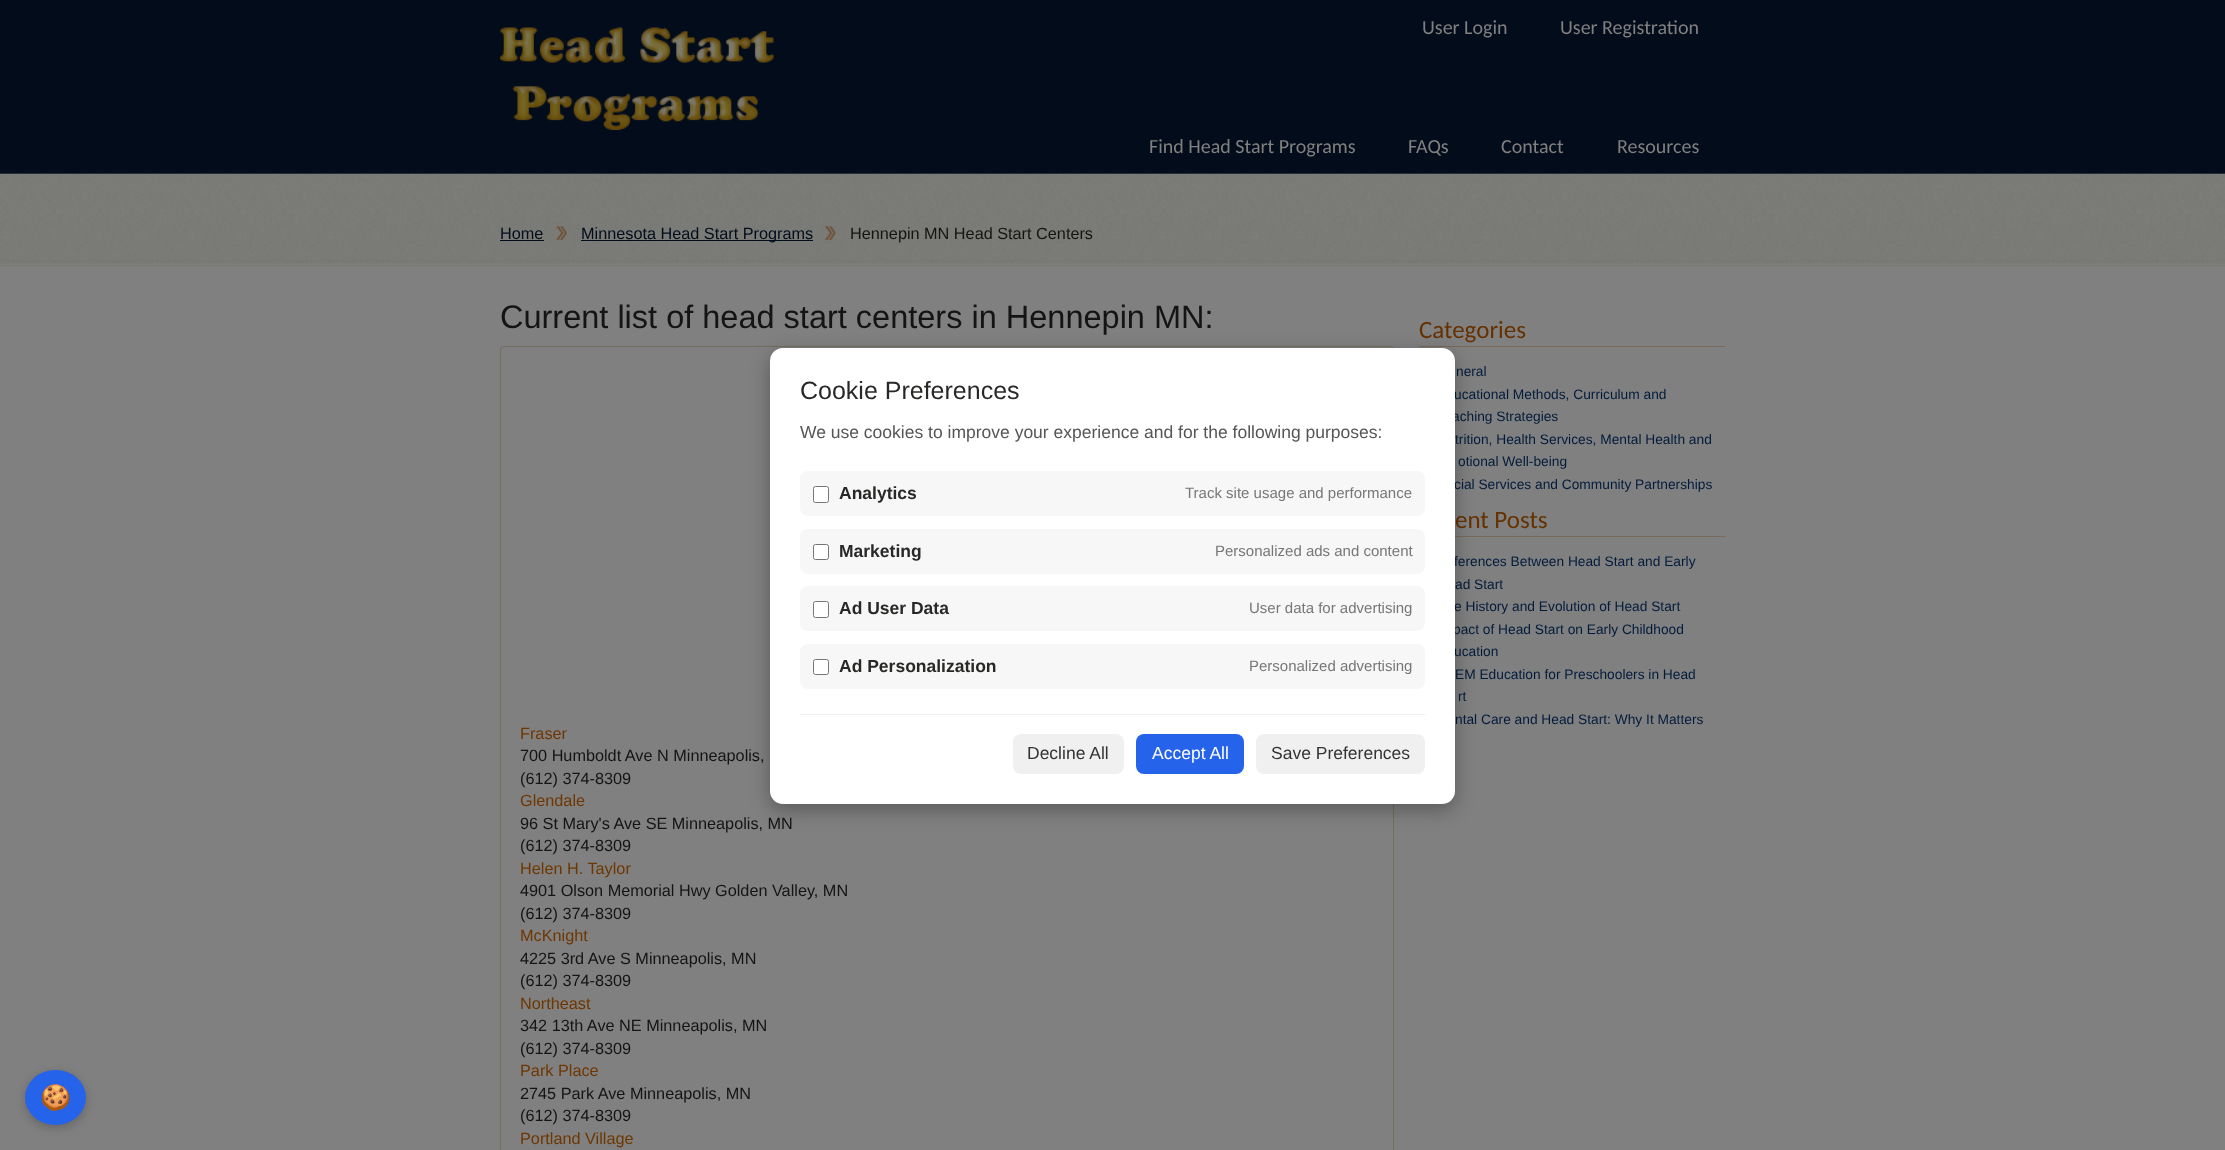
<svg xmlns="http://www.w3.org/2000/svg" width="2225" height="1150">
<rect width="100%" height="100%" fill="#808080"/>
<image x="0" y="0" width="2225" height="267" href="media/1.png"/>
<image x="500" y="27" width="274" height="103" href="media/2.png"/>
<text x="1422" y="34" style="font-family:Carlito;font-size:20px;fill:#808080">User Login</text>
<text x="1560" y="34" style="font-family:Carlito;font-size:20px;fill:#808080">User Registration</text>
<text x="1149" y="153" style="font-family:Carlito;font-size:20px;fill:#808080">Find Head Start Programs</text>
<text x="1408" y="153" style="font-family:Carlito;font-size:20px;fill:#808080">FAQs</text>
<text x="1501" y="153" style="font-family:Carlito;font-size:20px;fill:#808080">Contact</text>
<text x="1617" y="153" style="font-family:Carlito;font-size:20px;fill:#808080">Resources</text>
<image x="556" y="226" width="11" height="14" href="media/3.png"/>
<text x="500" y="239" style="font-family:Liberation Sans;font-size:16.25px;fill:#020c1b">Home</text>
<rect x="500" y="240" width="44" height="1" fill="#020c1b"/>
<image x="825" y="226" width="11" height="14" href="media/4.png"/>
<rect x="581" y="240" width="232" height="1" fill="#020c1b"/>
<text x="581" y="239" style="font-family:Liberation Sans;font-size:16.25px;fill:#020c1b">Minnesota Head Start Programs</text>
<text x="850" y="239" style="font-family:Liberation Sans;font-size:16.25px;fill:#141414">Hennepin MN Head Start Centers</text>
<text x="500" y="328" style="font-family:Liberation Sans;font-size:32.5px;fill:#141414">Current list of head start centers in Hennepin MN:</text>
<rect x="500.5" y="346.5" width="893" height="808" rx="3.5" fill="none" stroke="#746e5e"/>
<text x="520" y="739" style="font-family:Liberation Sans;font-size:16.25px;fill:#6e3600">Fraser</text>
<text x="520" y="761" style="font-family:Liberation Sans;font-size:16.25px;fill:#141414">700 Humboldt Ave N Minneapolis,</text>
<text x="520" y="784" style="font-family:Liberation Sans;font-size:16.25px;fill:#141414">(612) 374-8309</text>
<text x="520" y="806" style="font-family:Liberation Sans;font-size:16.25px;fill:#6e3600">Glendale</text>
<text x="520" y="829" style="font-family:Liberation Sans;font-size:16.25px;fill:#141414">96 St Mary's Ave SE Minneapolis, MN</text>
<text x="520" y="851" style="font-family:Liberation Sans;font-size:16.25px;fill:#141414">(612) 374-8309</text>
<text x="520" y="874" style="font-family:Liberation Sans;font-size:16.25px;fill:#6e3600">Helen H. Taylor</text>
<text x="520" y="896" style="font-family:Liberation Sans;font-size:16.25px;fill:#141414">4901 Olson Memorial Hwy Golden Valley, MN</text>
<text x="520" y="919" style="font-family:Liberation Sans;font-size:16.25px;fill:#141414">(612) 374-8309</text>
<text x="520" y="941" style="font-family:Liberation Sans;font-size:16.25px;fill:#6e3600">McKnight</text>
<text x="520" y="964" style="font-family:Liberation Sans;font-size:16.25px;fill:#141414">4225 3rd Ave S Minneapolis, MN</text>
<text x="520" y="986" style="font-family:Liberation Sans;font-size:16.25px;fill:#141414">(612) 374-8309</text>
<text x="520" y="1009" style="font-family:Liberation Sans;font-size:16.25px;fill:#6e3600">Northeast</text>
<text x="520" y="1031" style="font-family:Liberation Sans;font-size:16.25px;fill:#141414">342 13th Ave NE Minneapolis, MN</text>
<text x="520" y="1054" style="font-family:Liberation Sans;font-size:16.25px;fill:#141414">(612) 374-8309</text>
<text x="520" y="1076" style="font-family:Liberation Sans;font-size:16.25px;fill:#6e3600">Park Place</text>
<text x="520" y="1099" style="font-family:Liberation Sans;font-size:16.25px;fill:#141414">2745 Park Ave Minneapolis, MN</text>
<text x="520" y="1121" style="font-family:Liberation Sans;font-size:16.25px;fill:#141414">(612) 374-8309</text>
<text x="520" y="1144" style="font-family:Liberation Sans;font-size:16.25px;fill:#6e3600">Portland Village</text>
<rect x="1419" y="346" width="306" height="1" fill="#7a6959"/>
<text x="1419" y="338" style="font-family:Carlito;font-size:25px;fill:#653100">Categories</text>
<text x="1456" y="376" style="font-family:Liberation Sans;font-size:13.75px;fill:#031b3b">neral</text>
<text x="1454" y="399" style="font-family:Liberation Sans;font-size:13.75px;fill:#031b3b">ucational Methods, Curriculum and</text>
<text x="1452" y="421" style="font-family:Liberation Sans;font-size:13.75px;fill:#031b3b">aching Strategies</text>
<text x="1455" y="444" style="font-family:Liberation Sans;font-size:13.75px;fill:#031b3b">trition, Health Services, Mental Health and</text>
<text x="1458" y="466" style="font-family:Liberation Sans;font-size:13.75px;fill:#031b3b">otional Well-being</text>
<text x="1454" y="489" style="font-family:Liberation Sans;font-size:13.75px;fill:#031b3b">cial Services and Community Partnerships</text>
<rect x="1455" y="536" width="270" height="1" fill="#7a6959"/>
<text x="1455" y="528" style="font-family:Carlito;font-size:25px;fill:#653100">ent Posts</text>
<text x="1454" y="566" style="font-family:Liberation Sans;font-size:13.75px;fill:#031b3b">ferences Between Head Start and Early</text>
<text x="1455" y="589" style="font-family:Liberation Sans;font-size:13.75px;fill:#031b3b">ad Start</text>
<text x="1454" y="611" style="font-family:Liberation Sans;font-size:13.75px;fill:#031b3b">e History and Evolution of Head Start</text>
<text x="1453" y="634" style="font-family:Liberation Sans;font-size:13.75px;fill:#031b3b">pact of Head Start on Early Childhood</text>
<text x="1454" y="656" style="font-family:Liberation Sans;font-size:13.75px;fill:#031b3b">ucation</text>
<text x="1455" y="679" style="font-family:Liberation Sans;font-size:13.75px;fill:#031b3b">EM Education for Preschoolers in Head</text>
<text x="1458" y="701" style="font-family:Liberation Sans;font-size:13.75px;fill:#031b3b">rt</text>
<text x="1455" y="724" style="font-family:Liberation Sans;font-size:13.75px;fill:#031b3b">ntal Care and Head Start: Why It Matters</text>
<rect x="770" y="354" width="685" height="456" rx="13" fill="#0000004d" filter="blur(9.5px)"/>
<rect x="770" y="348" width="685" height="456" rx="13" fill="#fff"/>
<text x="800" y="399" style="font-family:Liberation Sans;font-size:25px;fill:#282827">Cookie Preferences</text>
<text x="800" y="438" style="font-family:Liberation Sans;font-size:17.5px;fill:#555">We use cookies to improve your experience and for the following purposes:</text>
<rect x="800" y="471" width="625" height="45" rx="8" fill="#f7f7f7"/>
<rect x="813.5" y="486.5" width="15" height="16" rx="2" fill="#fff" stroke="#767676"/>
<text x="839" y="499" style="font-family:Liberation Sans;font-size:17.5px;font-weight:bold;fill:#282827">Analytics</text>
<text x="1185" y="498" style="font-family:Liberation Sans;font-size:15px;fill:#777">Track site usage and performance</text>
<rect x="800" y="529" width="625" height="45" rx="8" fill="#f7f7f7"/>
<rect x="813.5" y="544.5" width="15" height="15" rx="2" fill="#fff" stroke="#767676"/>
<text x="839" y="557" style="font-family:Liberation Sans;font-size:17.5px;font-weight:bold;fill:#282827">Marketing</text>
<text x="1215" y="556" style="font-family:Liberation Sans;font-size:15px;fill:#777">Personalized ads and content</text>
<rect x="800" y="586" width="625" height="45" rx="8" fill="#f7f7f7"/>
<rect x="813.5" y="601.5" width="15" height="16" rx="2" fill="#fff" stroke="#767676"/>
<text x="839" y="614" style="font-family:Liberation Sans;font-size:17.5px;font-weight:bold;fill:#282827">Ad User Data</text>
<text x="1249" y="613" style="font-family:Liberation Sans;font-size:15px;fill:#777">User data for advertising</text>
<rect x="800" y="644" width="625" height="45" rx="8" fill="#f7f7f7"/>
<rect x="813.5" y="659.5" width="15" height="15" rx="2" fill="#fff" stroke="#767676"/>
<text x="839" y="672" style="font-family:Liberation Sans;font-size:17.5px;font-weight:bold;fill:#282827">Ad Personalization</text>
<text x="1249" y="671" style="font-family:Liberation Sans;font-size:15px;fill:#777">Personalized advertising</text>
<rect x="800" y="714" width="625" height="1" fill="#eee"/>
<rect x="1013" y="734" width="111" height="40" rx="8" fill="#f0f0f0"/>
<text x="1027" y="759" style="font-family:Liberation Sans;font-size:17.5px;fill:#333">Decline All</text>
<rect x="1136" y="734" width="108" height="40" rx="8" fill="#2563eb"/>
<text x="1152" y="759" style="font-family:Liberation Sans;font-size:17.5px;fill:#fff">Accept All</text>
<rect x="1256" y="734" width="169" height="40" rx="8" fill="#f0f0f0"/>
<text x="1271" y="759" style="font-family:Liberation Sans;font-size:17.5px;fill:#333">Save Preferences</text>
<rect x="25" y="1073" width="61" height="55" rx="27.5" fill="#00000033" filter="blur(5px)"/>
<ellipse cx="55.5" cy="1097.5" rx="30.5" ry="27.5" fill="#2563eb"/>
<text x="40" y="1106" style="font-family:Noto Color Emoji;font-size:25px;fill:#fff">🍪</text>
</svg>
